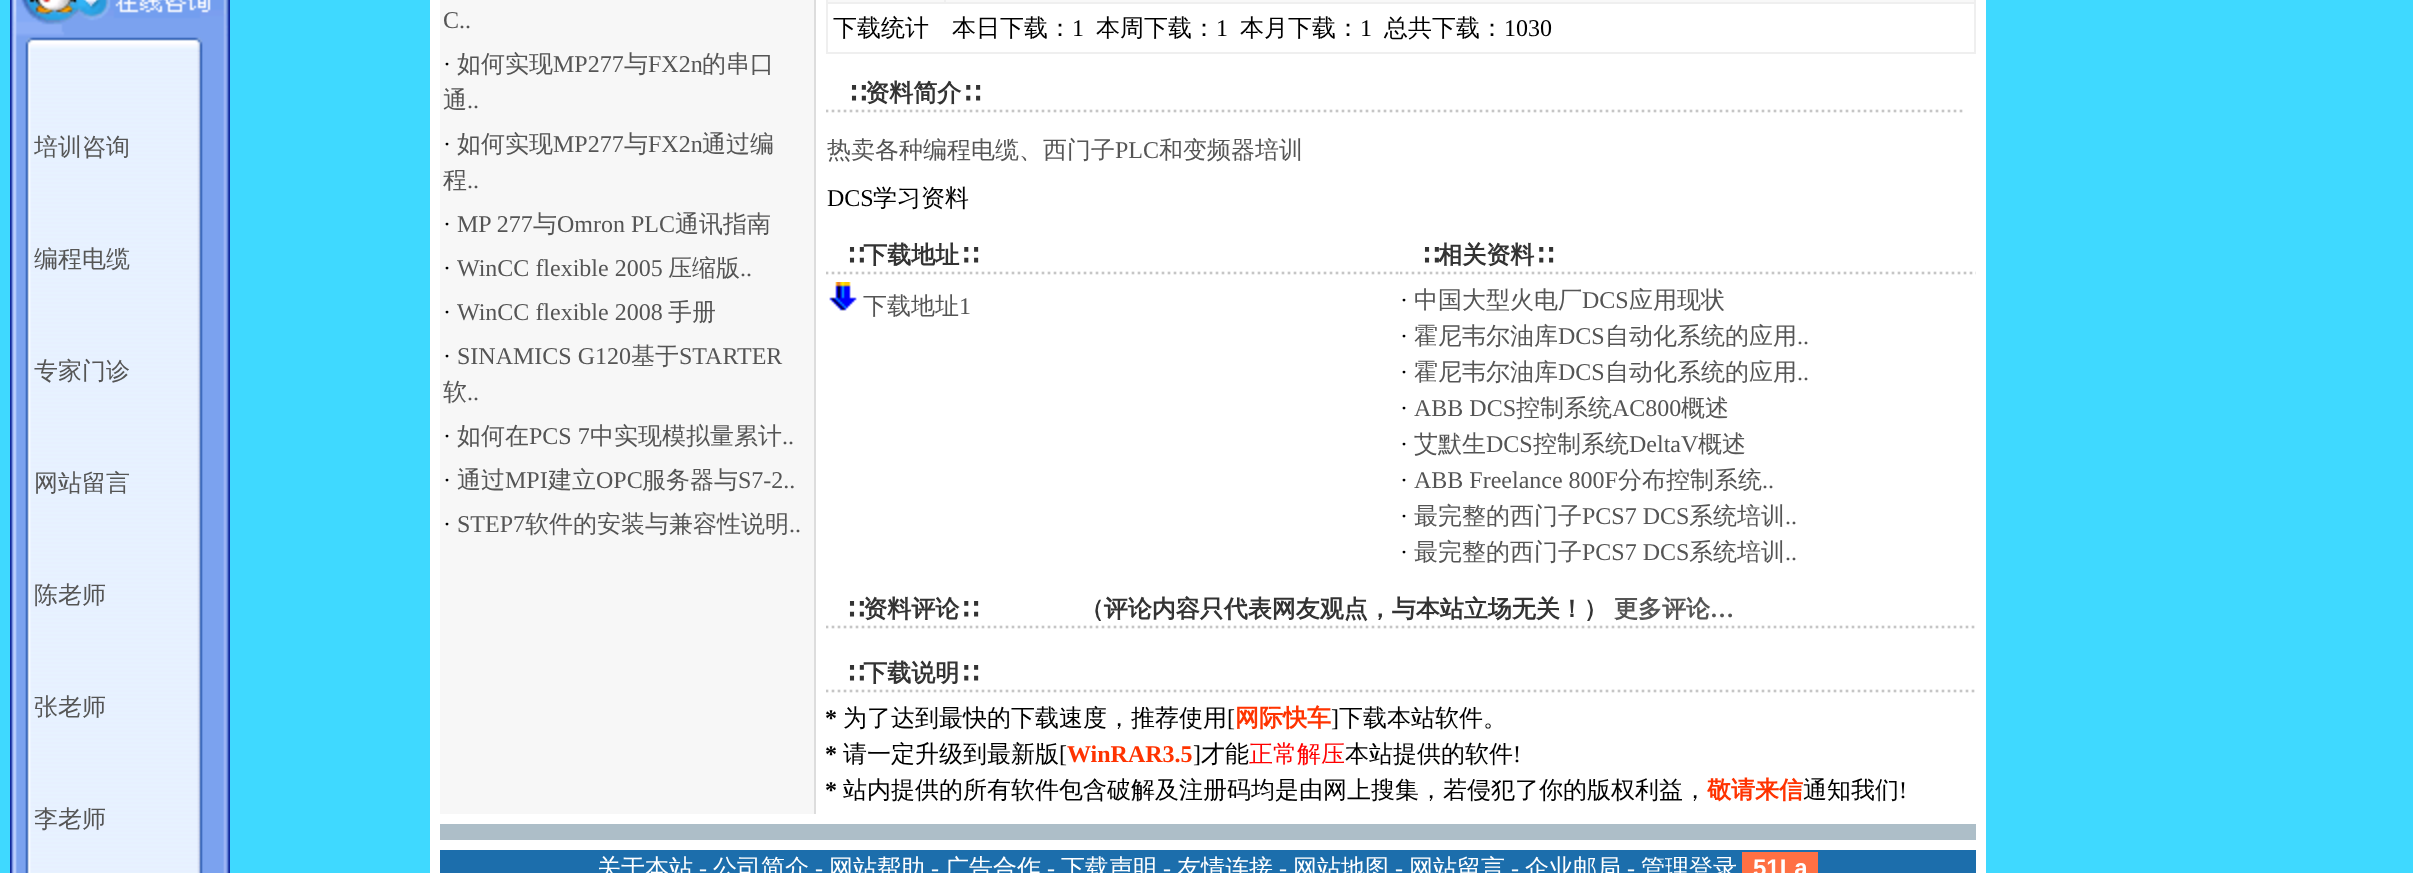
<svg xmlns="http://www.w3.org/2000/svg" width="2413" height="873">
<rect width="100%" height="100%" fill="#3fd9ff"/>
<image x="10" y="0" width="220" height="52" href="media/1.png"/>
<image x="10" y="52" width="220" height="821" href="media/2.png"/>
<text x="34" y="155" style="font-family:WenQuanYi Zen Hei;font-size:24px;font-weight:500;fill:#555">培训咨询</text>
<text x="34" y="267" style="font-family:WenQuanYi Zen Hei;font-size:24px;font-weight:500;fill:#555">编程电缆</text>
<text x="34" y="379" style="font-family:WenQuanYi Zen Hei;font-size:24px;font-weight:500;fill:#555">专家门诊</text>
<text x="34" y="491" style="font-family:WenQuanYi Zen Hei;font-size:24px;font-weight:500;fill:#555">网站留言</text>
<text x="34" y="603" style="font-family:WenQuanYi Zen Hei;font-size:24px;font-weight:500;fill:#555">陈老师</text>
<text x="34" y="715" style="font-family:WenQuanYi Zen Hei;font-size:24px;font-weight:500;fill:#555">张老师</text>
<text x="34" y="827" style="font-family:WenQuanYi Zen Hei;font-size:24px;font-weight:500;fill:#555">李老师</text>
<rect x="816" width="1170" height="814" fill="#fff"/>
<rect x="430" width="10" height="873" fill="#fff"/>
<rect x="440" width="374" height="814" fill="#f7f7f7"/>
<rect x="814" width="2" height="816" fill="#ddd"/>
<text x="443" y="28" style="font-family:Liberation Serif;font-size:24px;fill:#555">C..</text>
<text x="443" y="72" style="font-family:Liberation Serif;font-size:24px;fill:#000">·</text>
<text x="457" y="72" style="font-family:WenQuanYi Zen Hei;font-size:24px;font-weight:500;fill:#555">如何实现</text>
<text x="553" y="72" style="font-family:Liberation Serif;font-size:24px;fill:#555">MP277</text>
<text x="624" y="72" style="font-family:WenQuanYi Zen Hei;font-size:24px;font-weight:500;fill:#555">与</text>
<text x="648" y="72" style="font-family:Liberation Serif;font-size:24px;fill:#555">FX2n</text>
<text x="702" y="72" style="font-family:WenQuanYi Zen Hei;font-size:24px;font-weight:500;fill:#555">的串口</text>
<text x="443" y="108" style="font-family:WenQuanYi Zen Hei;font-size:24px;font-weight:500;fill:#555">通</text>
<text x="467" y="108" style="font-family:Liberation Serif;font-size:24px;fill:#555">..</text>
<text x="443" y="152" style="font-family:Liberation Serif;font-size:24px;fill:#000">·</text>
<text x="457" y="152" style="font-family:WenQuanYi Zen Hei;font-size:24px;font-weight:500;fill:#555">如何实现</text>
<text x="553" y="152" style="font-family:Liberation Serif;font-size:24px;fill:#555">MP277</text>
<text x="624" y="152" style="font-family:WenQuanYi Zen Hei;font-size:24px;font-weight:500;fill:#555">与</text>
<text x="648" y="152" style="font-family:Liberation Serif;font-size:24px;fill:#555">FX2n</text>
<text x="702" y="152" style="font-family:WenQuanYi Zen Hei;font-size:24px;font-weight:500;fill:#555">通过编</text>
<text x="443" y="188" style="font-family:WenQuanYi Zen Hei;font-size:24px;font-weight:500;fill:#555">程</text>
<text x="467" y="188" style="font-family:Liberation Serif;font-size:24px;fill:#555">..</text>
<text x="443" y="232" style="font-family:Liberation Serif;font-size:24px;fill:#000">·</text>
<text x="457" y="232" style="font-family:Liberation Serif;font-size:24px;fill:#555">MP 277</text>
<text x="533" y="232" style="font-family:WenQuanYi Zen Hei;font-size:24px;font-weight:500;fill:#555">与</text>
<text x="557" y="232" style="font-family:Liberation Serif;font-size:24px;fill:#555">Omron PLC</text>
<text x="675" y="232" style="font-family:WenQuanYi Zen Hei;font-size:24px;font-weight:500;fill:#555">通讯指南</text>
<text x="443" y="276" style="font-family:Liberation Serif;font-size:24px;fill:#000">·</text>
<text x="457" y="276" style="font-family:Liberation Serif;font-size:24px;fill:#555">WinCC flexible 2005</text>
<text x="668" y="276" style="font-family:WenQuanYi Zen Hei;font-size:24px;font-weight:500;fill:#555">压缩版</text>
<text x="740" y="276" style="font-family:Liberation Serif;font-size:24px;fill:#555">..</text>
<text x="443" y="320" style="font-family:Liberation Serif;font-size:24px;fill:#000">·</text>
<text x="457" y="320" style="font-family:Liberation Serif;font-size:24px;fill:#555">WinCC flexible 2008</text>
<text x="668" y="320" style="font-family:WenQuanYi Zen Hei;font-size:24px;font-weight:500;fill:#555">手册</text>
<text x="443" y="364" style="font-family:Liberation Serif;font-size:24px;fill:#000">·</text>
<text x="457" y="364" style="font-family:Liberation Serif;font-size:24px;fill:#555">SINAMICS G120</text>
<text x="631" y="364" style="font-family:WenQuanYi Zen Hei;font-size:24px;font-weight:500;fill:#555">基于</text>
<text x="679" y="364" style="font-family:Liberation Serif;font-size:24px;fill:#555">STARTER</text>
<text x="443" y="400" style="font-family:WenQuanYi Zen Hei;font-size:24px;font-weight:500;fill:#555">软</text>
<text x="467" y="400" style="font-family:Liberation Serif;font-size:24px;fill:#555">..</text>
<text x="443" y="444" style="font-family:Liberation Serif;font-size:24px;fill:#000">·</text>
<text x="457" y="444" style="font-family:WenQuanYi Zen Hei;font-size:24px;font-weight:500;fill:#555">如何在</text>
<text x="529" y="444" style="font-family:Liberation Serif;font-size:24px;fill:#555">PCS 7</text>
<text x="590" y="444" style="font-family:WenQuanYi Zen Hei;font-size:24px;font-weight:500;fill:#555">中实现模拟量累计</text>
<text x="782" y="444" style="font-family:Liberation Serif;font-size:24px;fill:#555">..</text>
<text x="443" y="488" style="font-family:Liberation Serif;font-size:24px;fill:#000">·</text>
<text x="457" y="488" style="font-family:WenQuanYi Zen Hei;font-size:24px;font-weight:500;fill:#555">通过</text>
<text x="505" y="488" style="font-family:Liberation Serif;font-size:24px;fill:#555">MPI</text>
<text x="548" y="488" style="font-family:WenQuanYi Zen Hei;font-size:24px;font-weight:500;fill:#555">建立</text>
<text x="596" y="488" style="font-family:Liberation Serif;font-size:24px;fill:#555">OPC</text>
<text x="642" y="488" style="font-family:WenQuanYi Zen Hei;font-size:24px;font-weight:500;fill:#555">服务器与</text>
<text x="738" y="488" style="font-family:Liberation Serif;font-size:24px;fill:#555">S7-2..</text>
<text x="443" y="532" style="font-family:Liberation Serif;font-size:24px;fill:#000">·</text>
<text x="457" y="532" style="font-family:Liberation Serif;font-size:24px;fill:#555">STEP7</text>
<text x="525" y="532" style="font-family:WenQuanYi Zen Hei;font-size:24px;font-weight:500;fill:#555">软件的安装与兼容性说明</text>
<text x="789" y="532" style="font-family:Liberation Serif;font-size:24px;fill:#555">..</text>
<rect x="826" width="1150" height="54" fill="#efefef"/>
<rect x="828" width="116" height="2" fill="#f8f8f8"/>
<rect x="946" width="1028" height="2" fill="#f8f8f8"/>
<rect x="828" y="4" width="1146" height="48" fill="#fff"/>
<text x="833" y="36" style="font-family:WenQuanYi Zen Hei;font-size:24px;font-weight:500;fill:#000">下载统计</text>
<text x="952" y="36" style="font-family:WenQuanYi Zen Hei;font-size:24px;font-weight:500;fill:#000">本日下载：</text>
<text x="1072" y="36" style="font-family:Liberation Serif;font-size:24px;fill:#000">1</text>
<text x="1096" y="36" style="font-family:WenQuanYi Zen Hei;font-size:24px;font-weight:500;fill:#000">本周下载：</text>
<text x="1216" y="36" style="font-family:Liberation Serif;font-size:24px;fill:#000">1</text>
<text x="1240" y="36" style="font-family:WenQuanYi Zen Hei;font-size:24px;font-weight:500;fill:#000">本月下载：</text>
<text x="1360" y="36" style="font-family:Liberation Serif;font-size:24px;fill:#000">1</text>
<text x="1384" y="36" style="font-family:WenQuanYi Zen Hei;font-size:24px;font-weight:500;fill:#000">总共下载：</text>
<text x="1504" y="36" style="font-family:Liberation Serif;font-size:24px;fill:#000">1030</text>
<image x="826" y="109" width="1137" height="4" href="media/3.png"/>
<text x="847" y="101" style="font-family:WenQuanYi Zen Hei;font-size:24px;font-weight:bold;fill:#333">∷资料简介∷</text>
<text x="827" y="158" style="font-family:WenQuanYi Zen Hei;font-size:24px;font-weight:500;fill:#555">热卖各种编程电缆、西门子</text>
<text x="1115" y="158" style="font-family:Liberation Serif;font-size:24px;fill:#555">PLC</text>
<text x="1159" y="158" style="font-family:WenQuanYi Zen Hei;font-size:24px;font-weight:500;fill:#555">和变频器培训</text>
<text x="827" y="206" style="font-family:Liberation Serif;font-size:24px;fill:#000">DCS</text>
<text x="873" y="206" style="font-family:WenQuanYi Zen Hei;font-size:24px;font-weight:500;fill:#000">学习资料</text>
<image x="826" y="271" width="573" height="4" href="media/4.png"/>
<text x="845" y="263" style="font-family:WenQuanYi Zen Hei;font-size:24px;font-weight:bold;fill:#333">∷下载地址∷</text>
<image x="1400" y="271" width="576" height="4" href="media/5.png"/>
<text x="1420" y="263" style="font-family:WenQuanYi Zen Hei;font-size:24px;font-weight:bold;fill:#333">∷相关资料∷</text>
<image x="829" y="282" width="28" height="29" href="media/6.png"/>
<text x="863" y="314" style="font-family:WenQuanYi Zen Hei;font-size:24px;font-weight:500;fill:#555">下载地址</text>
<text x="959" y="314" style="font-family:Liberation Serif;font-size:24px;fill:#555">1</text>
<text x="1400" y="308" style="font-family:Liberation Serif;font-size:24px;fill:#000">·</text>
<text x="1414" y="308" style="font-family:WenQuanYi Zen Hei;font-size:24px;font-weight:500;fill:#555">中国大型火电厂</text>
<text x="1582" y="308" style="font-family:Liberation Serif;font-size:24px;fill:#555">DCS</text>
<text x="1629" y="308" style="font-family:WenQuanYi Zen Hei;font-size:24px;font-weight:500;fill:#555">应用现状</text>
<text x="1400" y="344" style="font-family:Liberation Serif;font-size:24px;fill:#000">·</text>
<text x="1414" y="344" style="font-family:WenQuanYi Zen Hei;font-size:24px;font-weight:500;fill:#555">霍尼韦尔油库</text>
<text x="1558" y="344" style="font-family:Liberation Serif;font-size:24px;fill:#555">DCS</text>
<text x="1605" y="344" style="font-family:WenQuanYi Zen Hei;font-size:24px;font-weight:500;fill:#555">自动化系统的应用</text>
<text x="1797" y="344" style="font-family:Liberation Serif;font-size:24px;fill:#555">..</text>
<text x="1400" y="380" style="font-family:Liberation Serif;font-size:24px;fill:#000">·</text>
<text x="1414" y="380" style="font-family:WenQuanYi Zen Hei;font-size:24px;font-weight:500;fill:#555">霍尼韦尔油库</text>
<text x="1558" y="380" style="font-family:Liberation Serif;font-size:24px;fill:#555">DCS</text>
<text x="1605" y="380" style="font-family:WenQuanYi Zen Hei;font-size:24px;font-weight:500;fill:#555">自动化系统的应用</text>
<text x="1797" y="380" style="font-family:Liberation Serif;font-size:24px;fill:#555">..</text>
<text x="1400" y="416" style="font-family:Liberation Serif;font-size:24px;fill:#000">·</text>
<text x="1414" y="416" style="font-family:Liberation Serif;font-size:24px;fill:#555">ABB DCS</text>
<text x="1516" y="416" style="font-family:WenQuanYi Zen Hei;font-size:24px;font-weight:500;fill:#555">控制系统</text>
<text x="1612" y="416" style="font-family:Liberation Serif;font-size:24px;fill:#555">AC800</text>
<text x="1681" y="416" style="font-family:WenQuanYi Zen Hei;font-size:24px;font-weight:500;fill:#555">概述</text>
<text x="1400" y="452" style="font-family:Liberation Serif;font-size:24px;fill:#000">·</text>
<text x="1414" y="452" style="font-family:WenQuanYi Zen Hei;font-size:24px;font-weight:500;fill:#555">艾默生</text>
<text x="1486" y="452" style="font-family:Liberation Serif;font-size:24px;fill:#555">DCS</text>
<text x="1533" y="452" style="font-family:WenQuanYi Zen Hei;font-size:24px;font-weight:500;fill:#555">控制系统</text>
<text x="1629" y="452" style="font-family:Liberation Serif;font-size:24px;fill:#555">DeltaV</text>
<text x="1698" y="452" style="font-family:WenQuanYi Zen Hei;font-size:24px;font-weight:500;fill:#555">概述</text>
<text x="1400" y="488" style="font-family:Liberation Serif;font-size:24px;fill:#000">·</text>
<text x="1414" y="488" style="font-family:Liberation Serif;font-size:24px;fill:#555">ABB Freelance 800F</text>
<text x="1618" y="488" style="font-family:WenQuanYi Zen Hei;font-size:24px;font-weight:500;fill:#555">分布控制系统</text>
<text x="1762" y="488" style="font-family:Liberation Serif;font-size:24px;fill:#555">..</text>
<text x="1400" y="524" style="font-family:Liberation Serif;font-size:24px;fill:#000">·</text>
<text x="1414" y="524" style="font-family:WenQuanYi Zen Hei;font-size:24px;font-weight:500;fill:#555">最完整的西门子</text>
<text x="1582" y="524" style="font-family:Liberation Serif;font-size:24px;fill:#555">PCS7 DCS</text>
<text x="1689" y="524" style="font-family:WenQuanYi Zen Hei;font-size:24px;font-weight:500;fill:#555">系统培训</text>
<text x="1785" y="524" style="font-family:Liberation Serif;font-size:24px;fill:#555">..</text>
<text x="1400" y="560" style="font-family:Liberation Serif;font-size:24px;fill:#000">·</text>
<text x="1414" y="560" style="font-family:WenQuanYi Zen Hei;font-size:24px;font-weight:500;fill:#555">最完整的西门子</text>
<text x="1582" y="560" style="font-family:Liberation Serif;font-size:24px;fill:#555">PCS7 DCS</text>
<text x="1689" y="560" style="font-family:WenQuanYi Zen Hei;font-size:24px;font-weight:500;fill:#555">系统培训</text>
<text x="1785" y="560" style="font-family:Liberation Serif;font-size:24px;fill:#555">..</text>
<image x="826" y="625" width="1149" height="4" href="media/7.png"/>
<text x="845" y="617" word-spacing="-1" style="font-family:WenQuanYi Zen Hei;font-size:24px;font-weight:bold;fill:#333">∷资料评论∷　　　 　（评论内容只代表网友观点，与本站立场无关！）</text>
<text x="1614" y="617" style="font-family:WenQuanYi Zen Hei;font-size:24px;font-weight:bold;fill:#555">更多评论</text>
<text x="1710" y="617" style="font-family:Liberation Serif;font-size:24px;font-weight:bold;fill:#555">…</text>
<image x="826" y="689" width="1149" height="4" href="media/7.png"/>
<text x="845" y="681" style="font-family:WenQuanYi Zen Hei;font-size:24px;font-weight:bold;fill:#333">∷下载说明∷</text>
<text x="825" y="726" style="font-family:Liberation Serif;font-size:24px;font-weight:bold;fill:#000">*</text>
<text x="843" y="726" style="font-family:WenQuanYi Zen Hei;font-size:24px;font-weight:500;fill:#000">为了达到最快的下载速度，推荐使用</text>
<text x="1227" y="726" style="font-family:Liberation Serif;font-size:24px;fill:#000">[</text>
<text x="1235" y="726" style="font-family:WenQuanYi Zen Hei;font-size:24px;font-weight:bold;fill:#f30">网际快车</text>
<text x="1331" y="726" style="font-family:Liberation Serif;font-size:24px;fill:#000">]</text>
<text x="1339" y="726" style="font-family:WenQuanYi Zen Hei;font-size:24px;font-weight:500;fill:#000">下载本站软件。</text>
<text x="825" y="762" style="font-family:Liberation Serif;font-size:24px;font-weight:bold;fill:#000">*</text>
<text x="843" y="762" style="font-family:WenQuanYi Zen Hei;font-size:24px;font-weight:500;fill:#000">请一定升级到最新版</text>
<text x="1059" y="762" style="font-family:Liberation Serif;font-size:24px;fill:#000">[</text>
<text x="1067" y="762" style="font-family:Liberation Serif;font-size:24px;font-weight:bold;fill:#f30">WinRAR3.5</text>
<text x="1193" y="762" style="font-family:Liberation Serif;font-size:24px;fill:#000">]</text>
<text x="1201" y="762" style="font-family:WenQuanYi Zen Hei;font-size:24px;font-weight:500;fill:#000">才能</text>
<text x="1249" y="762" style="font-family:WenQuanYi Zen Hei;font-size:24px;font-weight:500;fill:#f00">正常解压</text>
<text x="1345" y="762" style="font-family:WenQuanYi Zen Hei;font-size:24px;font-weight:500;fill:#000">本站提供的软件</text>
<text x="1513" y="762" style="font-family:Liberation Serif;font-size:24px;fill:#000">!</text>
<text x="825" y="798" style="font-family:Liberation Serif;font-size:24px;font-weight:bold;fill:#000">*</text>
<text x="843" y="798" style="font-family:WenQuanYi Zen Hei;font-size:24px;font-weight:500;fill:#000">站内提供的所有软件包含破解及注册码均是由网上搜集，若侵犯了你的版权利益，</text>
<text x="1707" y="798" style="font-family:WenQuanYi Zen Hei;font-size:24px;font-weight:bold;fill:#f30">敬请来信</text>
<text x="1803" y="798" style="font-family:WenQuanYi Zen Hei;font-size:24px;font-weight:500;fill:#000">通知我们</text>
<text x="1899" y="798" style="font-family:Liberation Serif;font-size:24px;fill:#000">!</text>
<rect x="440" y="814" width="1536" height="36" fill="#fff"/>
<rect x="1976" y="814" width="10" height="59" fill="#fff"/>
<rect x="440" y="824" width="1536" height="16" fill="#adbec8"/>
<rect x="440" y="850" width="1536" height="23" fill="#1c6eac"/>
<text x="597" y="876" style="font-family:WenQuanYi Zen Hei;font-size:24px;font-weight:500;fill:#fff">关于本站</text>
<text x="699" y="876" style="font-family:Liberation Serif;font-size:24px;fill:#fff">-</text>
<text x="713" y="876" style="font-family:WenQuanYi Zen Hei;font-size:24px;font-weight:500;fill:#fff">公司简介</text>
<text x="815" y="876" style="font-family:Liberation Serif;font-size:24px;fill:#fff">-</text>
<text x="829" y="876" style="font-family:WenQuanYi Zen Hei;font-size:24px;font-weight:500;fill:#fff">网站帮助</text>
<text x="931" y="876" style="font-family:Liberation Serif;font-size:24px;fill:#fff">-</text>
<text x="945" y="876" style="font-family:WenQuanYi Zen Hei;font-size:24px;font-weight:500;fill:#fff">广告合作</text>
<text x="1047" y="876" style="font-family:Liberation Serif;font-size:24px;fill:#fff">-</text>
<text x="1061" y="876" style="font-family:WenQuanYi Zen Hei;font-size:24px;font-weight:500;fill:#fff">下载声明</text>
<text x="1163" y="876" style="font-family:Liberation Serif;font-size:24px;fill:#fff">-</text>
<text x="1177" y="876" style="font-family:WenQuanYi Zen Hei;font-size:24px;font-weight:500;fill:#fff">友情连接</text>
<text x="1279" y="876" style="font-family:Liberation Serif;font-size:24px;fill:#fff">-</text>
<text x="1293" y="876" style="font-family:WenQuanYi Zen Hei;font-size:24px;font-weight:500;fill:#fff">网站地图</text>
<text x="1395" y="876" style="font-family:Liberation Serif;font-size:24px;fill:#fff">-</text>
<text x="1409" y="876" style="font-family:WenQuanYi Zen Hei;font-size:24px;font-weight:500;fill:#fff">网站留言</text>
<text x="1511" y="876" style="font-family:Liberation Serif;font-size:24px;fill:#fff">-</text>
<text x="1525" y="876" style="font-family:WenQuanYi Zen Hei;font-size:24px;font-weight:500;fill:#fff">企业邮局</text>
<text x="1627" y="876" style="font-family:Liberation Serif;font-size:24px;fill:#fff">-</text>
<text x="1641" y="876" style="font-family:WenQuanYi Zen Hei;font-size:24px;font-weight:500;fill:#fff">管理登录</text>
<rect x="1742" y="852" width="76" height="21" fill="#ff7043"/>
<text x="1753" y="876" style="font-family:Liberation Sans;font-size:24px;font-weight:bold;fill:#fff">51La</text>
</svg>
